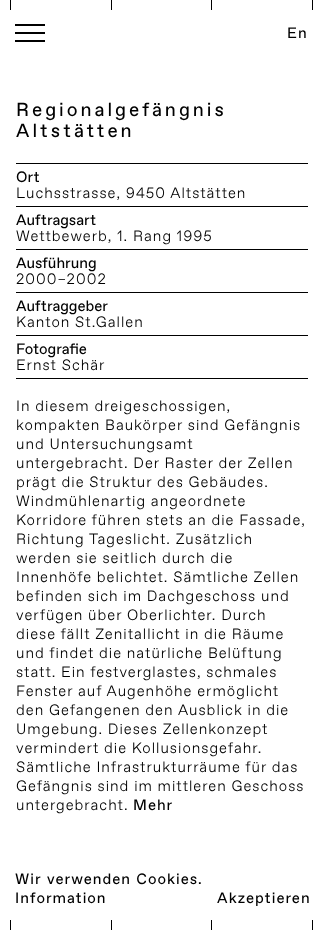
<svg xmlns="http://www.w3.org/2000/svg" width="323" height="930">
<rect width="100%" height="100%" fill="#fff"/>
<rect x="312" width="1" height="10" fill="#000"/>
<rect x="10" width="1" height="10" fill="#000"/>
<rect x="111" width="1" height="10" fill="#000"/>
<rect x="211" width="1" height="10" fill="#000"/>
<rect x="15" y="24" width="30" height="2" fill="#000"/>
<rect x="15" y="32" width="30" height="2" fill="#000"/>
<rect x="15" y="40" width="30" height="2" fill="#000"/>
<text x="287" y="38" style="font-family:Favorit;font-size:15px;letter-spacing:1px;fill:#000">En</text>
<text x="16" y="116" style="font-family:Favorit;font-size:19px;letter-spacing:3px;fill:#000">Regionalgefängnis</text>
<text x="16" y="137" style="font-family:Favorit;font-size:19px;letter-spacing:3px;fill:#000">Altstätten</text>
<rect x="16" y="163" width="292" height="1" fill="#000"/>
<rect x="16" y="206" width="292" height="1" fill="#000"/>
<text x="16" y="182" style="font-family:Favorit;font-size:15px;fill:#000">Ort</text>
<text x="16" y="198" style="font-family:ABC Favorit;font-size:15px;font-weight:300;letter-spacing:1px;fill:#000">Luchsstrasse, 9450 Altstätten</text>
<rect x="16" y="249" width="292" height="1" fill="#000"/>
<text x="16" y="225" style="font-family:Favorit;font-size:15px;fill:#000">Auftragsart</text>
<text x="16" y="241" style="font-family:ABC Favorit;font-size:15px;font-weight:300;letter-spacing:1px;fill:#000">Wettbewerb, 1. Rang 1995</text>
<rect x="16" y="292" width="292" height="1" fill="#000"/>
<text x="16" y="268" style="font-family:Favorit;font-size:15px;fill:#000">Ausführung</text>
<text x="16" y="284" style="font-family:ABC Favorit;font-size:15px;font-weight:300;letter-spacing:1px;fill:#000">2000–2002</text>
<rect x="16" y="335" width="292" height="1" fill="#000"/>
<text x="16" y="311" style="font-family:Favorit;font-size:15px;fill:#000">Auftraggeber</text>
<text x="16" y="327" style="font-family:ABC Favorit;font-size:15px;font-weight:300;letter-spacing:1px;fill:#000">Kanton St.Gallen</text>
<rect x="16" y="378" width="292" height="1" fill="#000"/>
<text x="16" y="354" style="font-family:Favorit;font-size:15px;fill:#000">Fotografie</text>
<text x="16" y="370" style="font-family:ABC Favorit;font-size:15px;font-weight:300;letter-spacing:1px;fill:#000">Ernst Schär</text>
<text x="16" y="411" style="font-family:ABC Favorit;font-size:15px;font-weight:300;letter-spacing:1px;fill:#000">In diesem dreigeschossigen,</text>
<text x="16" y="430" style="font-family:ABC Favorit;font-size:15px;font-weight:300;letter-spacing:1px;fill:#000">kompakten Baukörper sind Gefängnis</text>
<text x="16" y="449" style="font-family:ABC Favorit;font-size:15px;font-weight:300;letter-spacing:1px;fill:#000">und Untersuchungsamt</text>
<text x="16" y="468" style="font-family:ABC Favorit;font-size:15px;font-weight:300;letter-spacing:1px;fill:#000">untergebracht. Der Raster der Zellen</text>
<text x="16" y="487" style="font-family:ABC Favorit;font-size:15px;font-weight:300;letter-spacing:1px;fill:#000">prägt die Struktur des Gebäudes.</text>
<text x="16" y="506" style="font-family:ABC Favorit;font-size:15px;font-weight:300;letter-spacing:1px;fill:#000">Windmühlenartig angeordnete</text>
<text x="16" y="525" style="font-family:ABC Favorit;font-size:15px;font-weight:300;letter-spacing:1px;fill:#000">Korridore führen stets an die Fassade,</text>
<text x="16" y="544" style="font-family:ABC Favorit;font-size:15px;font-weight:300;letter-spacing:1px;fill:#000">Richtung Tageslicht. Zusätzlich</text>
<text x="16" y="563" style="font-family:ABC Favorit;font-size:15px;font-weight:300;letter-spacing:1px;fill:#000">werden sie seitlich durch die</text>
<text x="16" y="582" style="font-family:ABC Favorit;font-size:15px;font-weight:300;letter-spacing:1px;fill:#000">Innenhöfe belichtet. Sämtliche Zellen</text>
<text x="16" y="601" style="font-family:ABC Favorit;font-size:15px;font-weight:300;letter-spacing:1px;fill:#000">befinden sich im Dachgeschoss und</text>
<text x="16" y="620" style="font-family:ABC Favorit;font-size:15px;font-weight:300;letter-spacing:1px;fill:#000">verfügen über Oberlichter. Durch</text>
<text x="16" y="639" style="font-family:ABC Favorit;font-size:15px;font-weight:300;letter-spacing:1px;fill:#000">diese fällt Zenitallicht in die Räume</text>
<text x="16" y="658" style="font-family:ABC Favorit;font-size:15px;font-weight:300;letter-spacing:1px;fill:#000">und findet die natürliche Belüftung</text>
<text x="16" y="677" style="font-family:ABC Favorit;font-size:15px;font-weight:300;letter-spacing:1px;fill:#000">statt. Ein festverglastes, schmales</text>
<text x="16" y="696" style="font-family:ABC Favorit;font-size:15px;font-weight:300;letter-spacing:1px;fill:#000">Fenster auf Augenhöhe ermöglicht</text>
<text x="16" y="715" style="font-family:ABC Favorit;font-size:15px;font-weight:300;letter-spacing:1px;fill:#000">den Gefangenen den Ausblick in die</text>
<text x="16" y="734" style="font-family:ABC Favorit;font-size:15px;font-weight:300;letter-spacing:1px;fill:#000">Umgebung. Dieses Zellenkonzept</text>
<text x="16" y="753" style="font-family:ABC Favorit;font-size:15px;font-weight:300;letter-spacing:1px;fill:#000">vermindert die Kollusionsgefahr.</text>
<text x="16" y="772" style="font-family:ABC Favorit;font-size:15px;font-weight:300;letter-spacing:1px;fill:#000">Sämtliche Infrastrukturräume für das</text>
<text x="16" y="791" style="font-family:ABC Favorit;font-size:15px;font-weight:300;letter-spacing:1px;fill:#000">Gefängnis sind im mittleren Geschoss</text>
<text x="16" y="810" style="font-family:ABC Favorit;font-size:15px;font-weight:300;letter-spacing:1px;fill:#000">untergebracht.</text>
<text x="133" y="810" style="font-family:Favorit;font-size:15px;letter-spacing:1px;fill:#000">Mehr</text>
<text x="15" y="884" style="font-family:Favorit;font-size:15px;letter-spacing:1px;fill:#000">Wir verwenden Cookies.</text>
<text x="15" y="903" style="font-family:Favorit;font-size:15px;letter-spacing:1px;fill:#000">Information</text>
<text x="217" y="903" style="font-family:Favorit;font-size:15px;letter-spacing:1px;fill:#000">Akzeptieren</text>
<rect x="312" y="920" width="1" height="10" fill="#000"/>
<rect x="10" y="920" width="1" height="10" fill="#000"/>
<rect x="111" y="920" width="1" height="10" fill="#000"/>
<rect x="211" y="920" width="1" height="10" fill="#000"/>
</svg>
